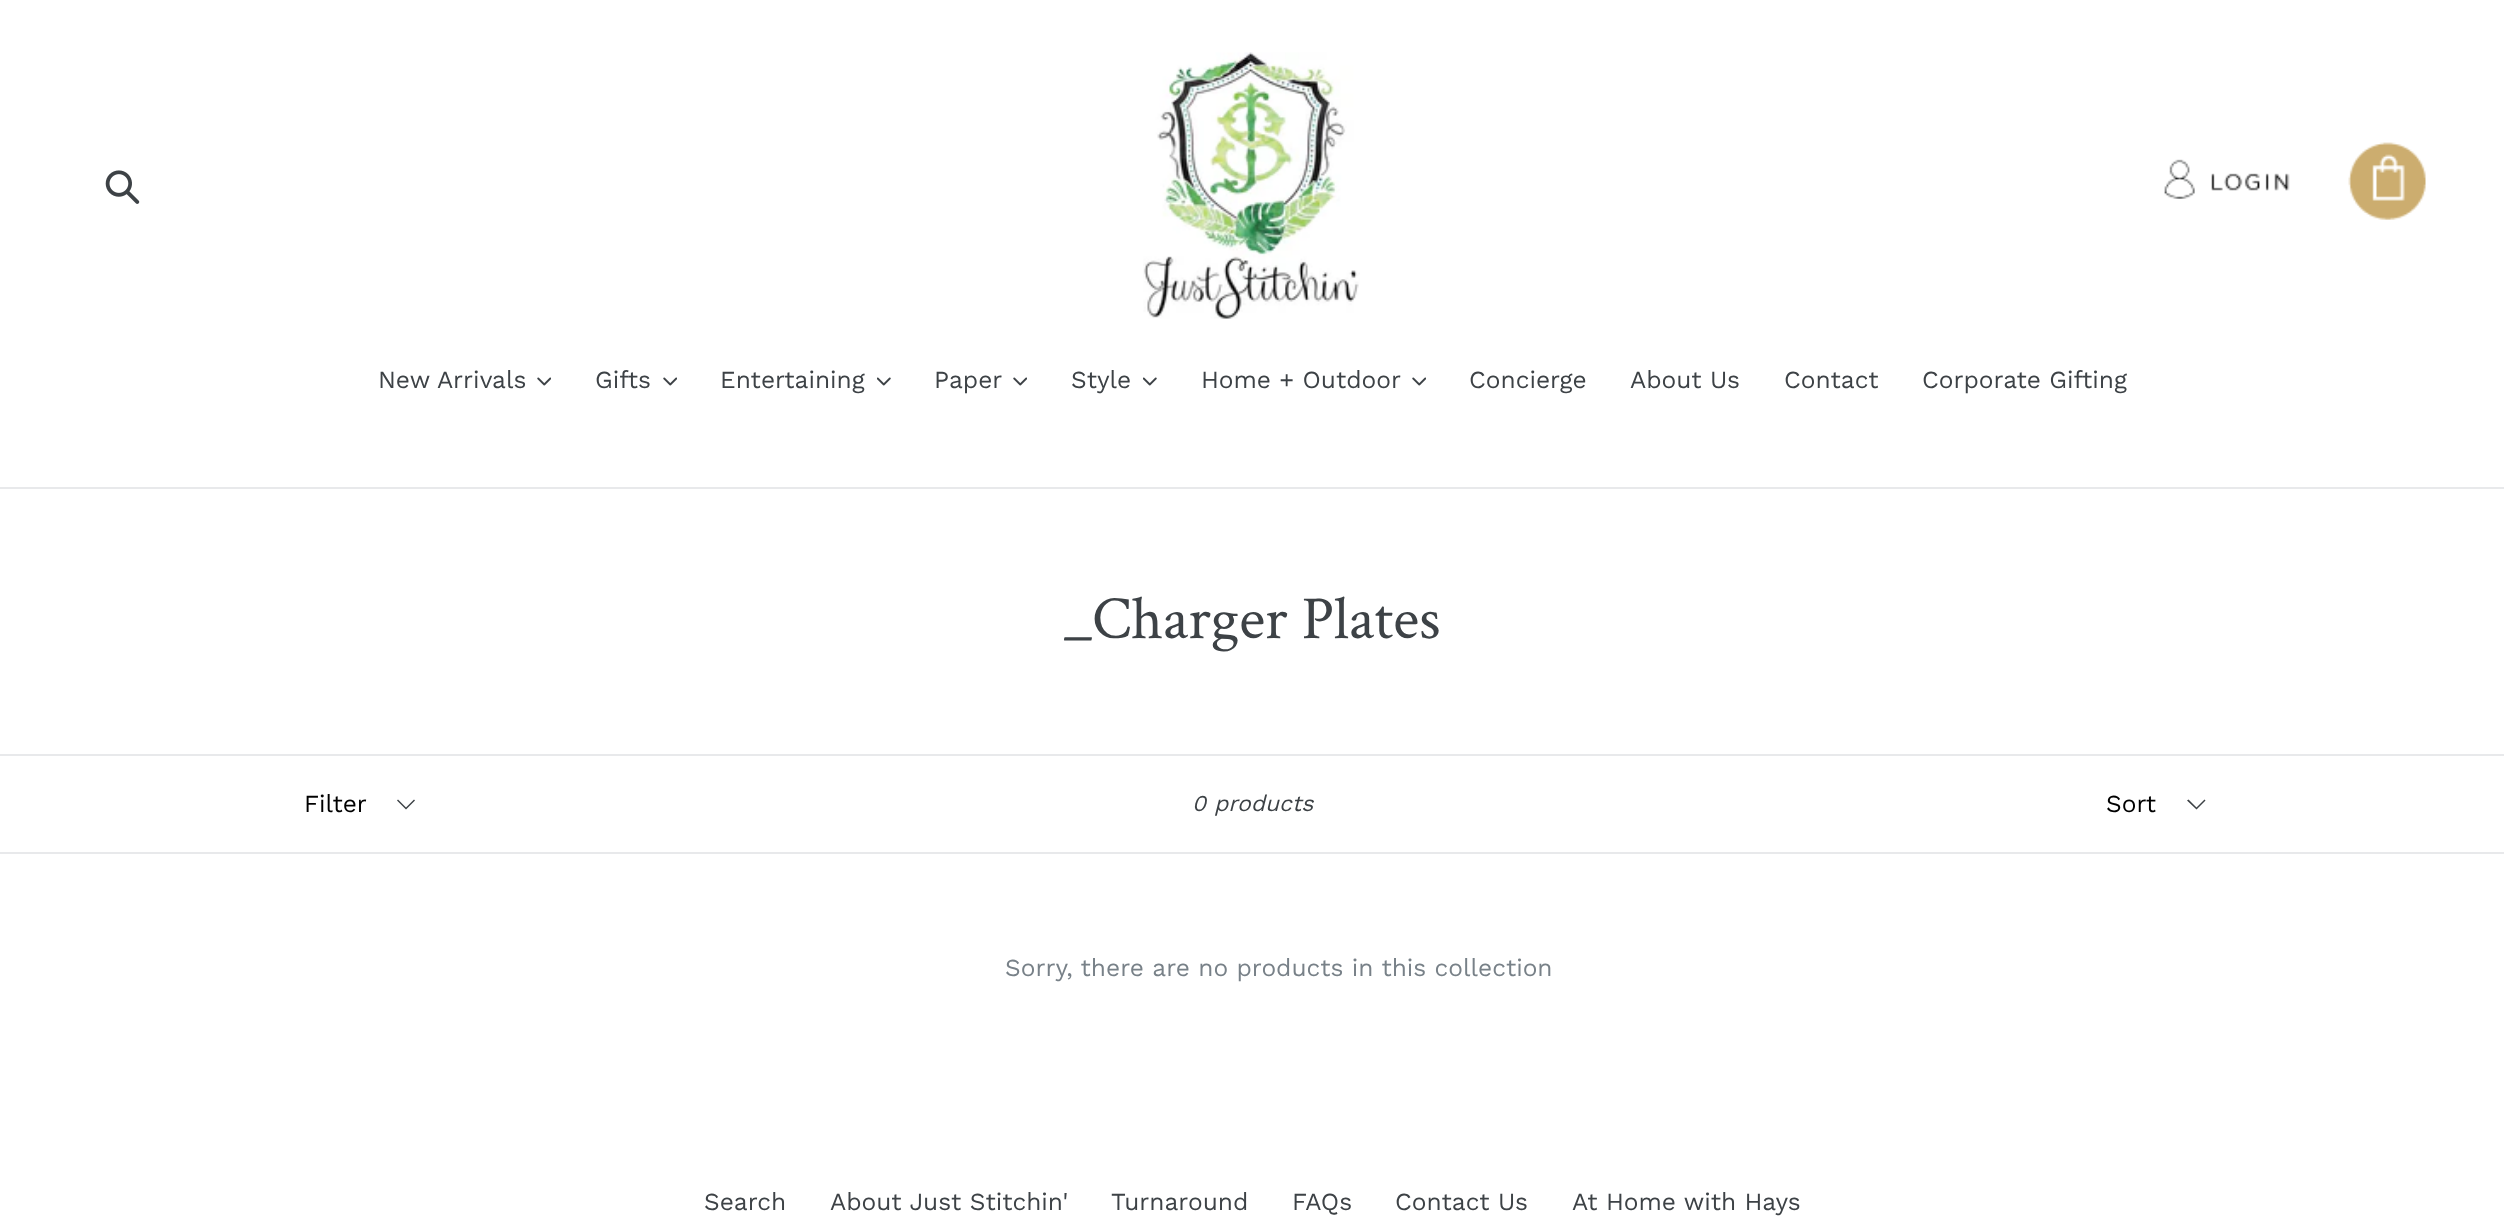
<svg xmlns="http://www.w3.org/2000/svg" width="2504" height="1219">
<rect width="100%" height="100%" fill="#fff"/>
<image x="105" y="170" width="35" height="34" href="media/1.png"/>
<image x="1143" y="52" width="217" height="267" href="media/2.png"/>
<image x="2164" y="159" width="126" height="40" href="media/3.png"/>
<image x="2348" y="142" width="78" height="78" href="media/4.png"/>
<rect y="487" width="2504" height="2" fill="#e8e9eb"/>
<text x="378" y="388" style="font-family:Work Sans;font-size:24.5px;fill:#3d4246">New Arrivals</text>
<image x="537" y="377" width="14" height="9" href="media/5.png"/>
<text x="595" y="388" style="font-family:Work Sans;font-size:24.5px;fill:#3d4246">Gifts</text>
<image x="663" y="377" width="14" height="9" href="media/5.png"/>
<text x="720" y="388" style="font-family:Work Sans;font-size:24.5px;fill:#3d4246">Entertaining</text>
<image x="877" y="377" width="14" height="9" href="media/6.png"/>
<text x="934" y="388" style="font-family:Work Sans;font-size:24.5px;fill:#3d4246">Paper</text>
<image x="1013" y="377" width="14" height="9" href="media/5.png"/>
<text x="1071" y="388" style="font-family:Work Sans;font-size:24.5px;fill:#3d4246">Style</text>
<image x="1143" y="377" width="14" height="9" href="media/6.png"/>
<text x="1201" y="388" style="font-family:Work Sans;font-size:24.5px;fill:#3d4246">Home + Outdoor</text>
<image x="1412" y="377" width="14" height="9" href="media/5.png"/>
<text x="1469" y="388" style="font-family:Work Sans;font-size:24.5px;fill:#3d4246">Concierge</text>
<text x="1630" y="388" style="font-family:Work Sans;font-size:24.5px;fill:#3d4246">About Us</text>
<text x="1784" y="388" style="font-family:Work Sans;font-size:24.5px;fill:#3d4246">Contact</text>
<text x="1922" y="388" style="font-family:Work Sans;font-size:24.5px;fill:#3d4246">Corporate Gifting</text>
<text x="1064" y="638" style="font-family:Crimson Text;font-size:61.25px;fill:#3d4246">_Charger Plates</text>
<rect y="754" width="2504" height="2" fill="#e8e9eb"/>
<rect y="852" width="2504" height="2" fill="#e8e9eb"/>
<path d="M406 809.5l-9-9l1-1l8 8l8-8l1 1z" fill="#3d4246"/>
<text x="304" y="812" style="font-family:Work Sans;font-size:24.5px;fill:#000">Filter</text>
<text x="1192" y="811" style="font-family:Work Sans;font-size:22.75px;font-style:italic;fill:#3d4246">0 products</text>
<path d="M2196.5 809.5l-9.5-9l1.5-1l8 8l8-8l1 1z" fill="#3d4246"/>
<text x="2106" y="812" style="font-family:Work Sans;font-size:24.5px;fill:#000">Sort</text>
<text x="1005" y="976" style="font-family:Work Sans;font-size:24.5px;fill:#788188">Sorry, there are no products in this collection</text>
<text x="704" y="1210" style="font-family:Work Sans;font-size:24.5px;fill:#3d4246">Search</text>
<text x="830" y="1210" style="font-family:Work Sans;font-size:24.5px;fill:#3d4246">About Just Stitchin'</text>
<text x="1111" y="1210" style="font-family:Work Sans;font-size:24.5px;fill:#3d4246">Turnaround</text>
<text x="1292" y="1210" style="font-family:Work Sans;font-size:24.5px;fill:#3d4246">FAQs</text>
<text x="1395" y="1210" style="font-family:Work Sans;font-size:24.5px;fill:#3d4246">Contact Us</text>
<text x="1572" y="1210" style="font-family:Work Sans;font-size:24.5px;fill:#3d4246">At Home with Hays</text>
</svg>
